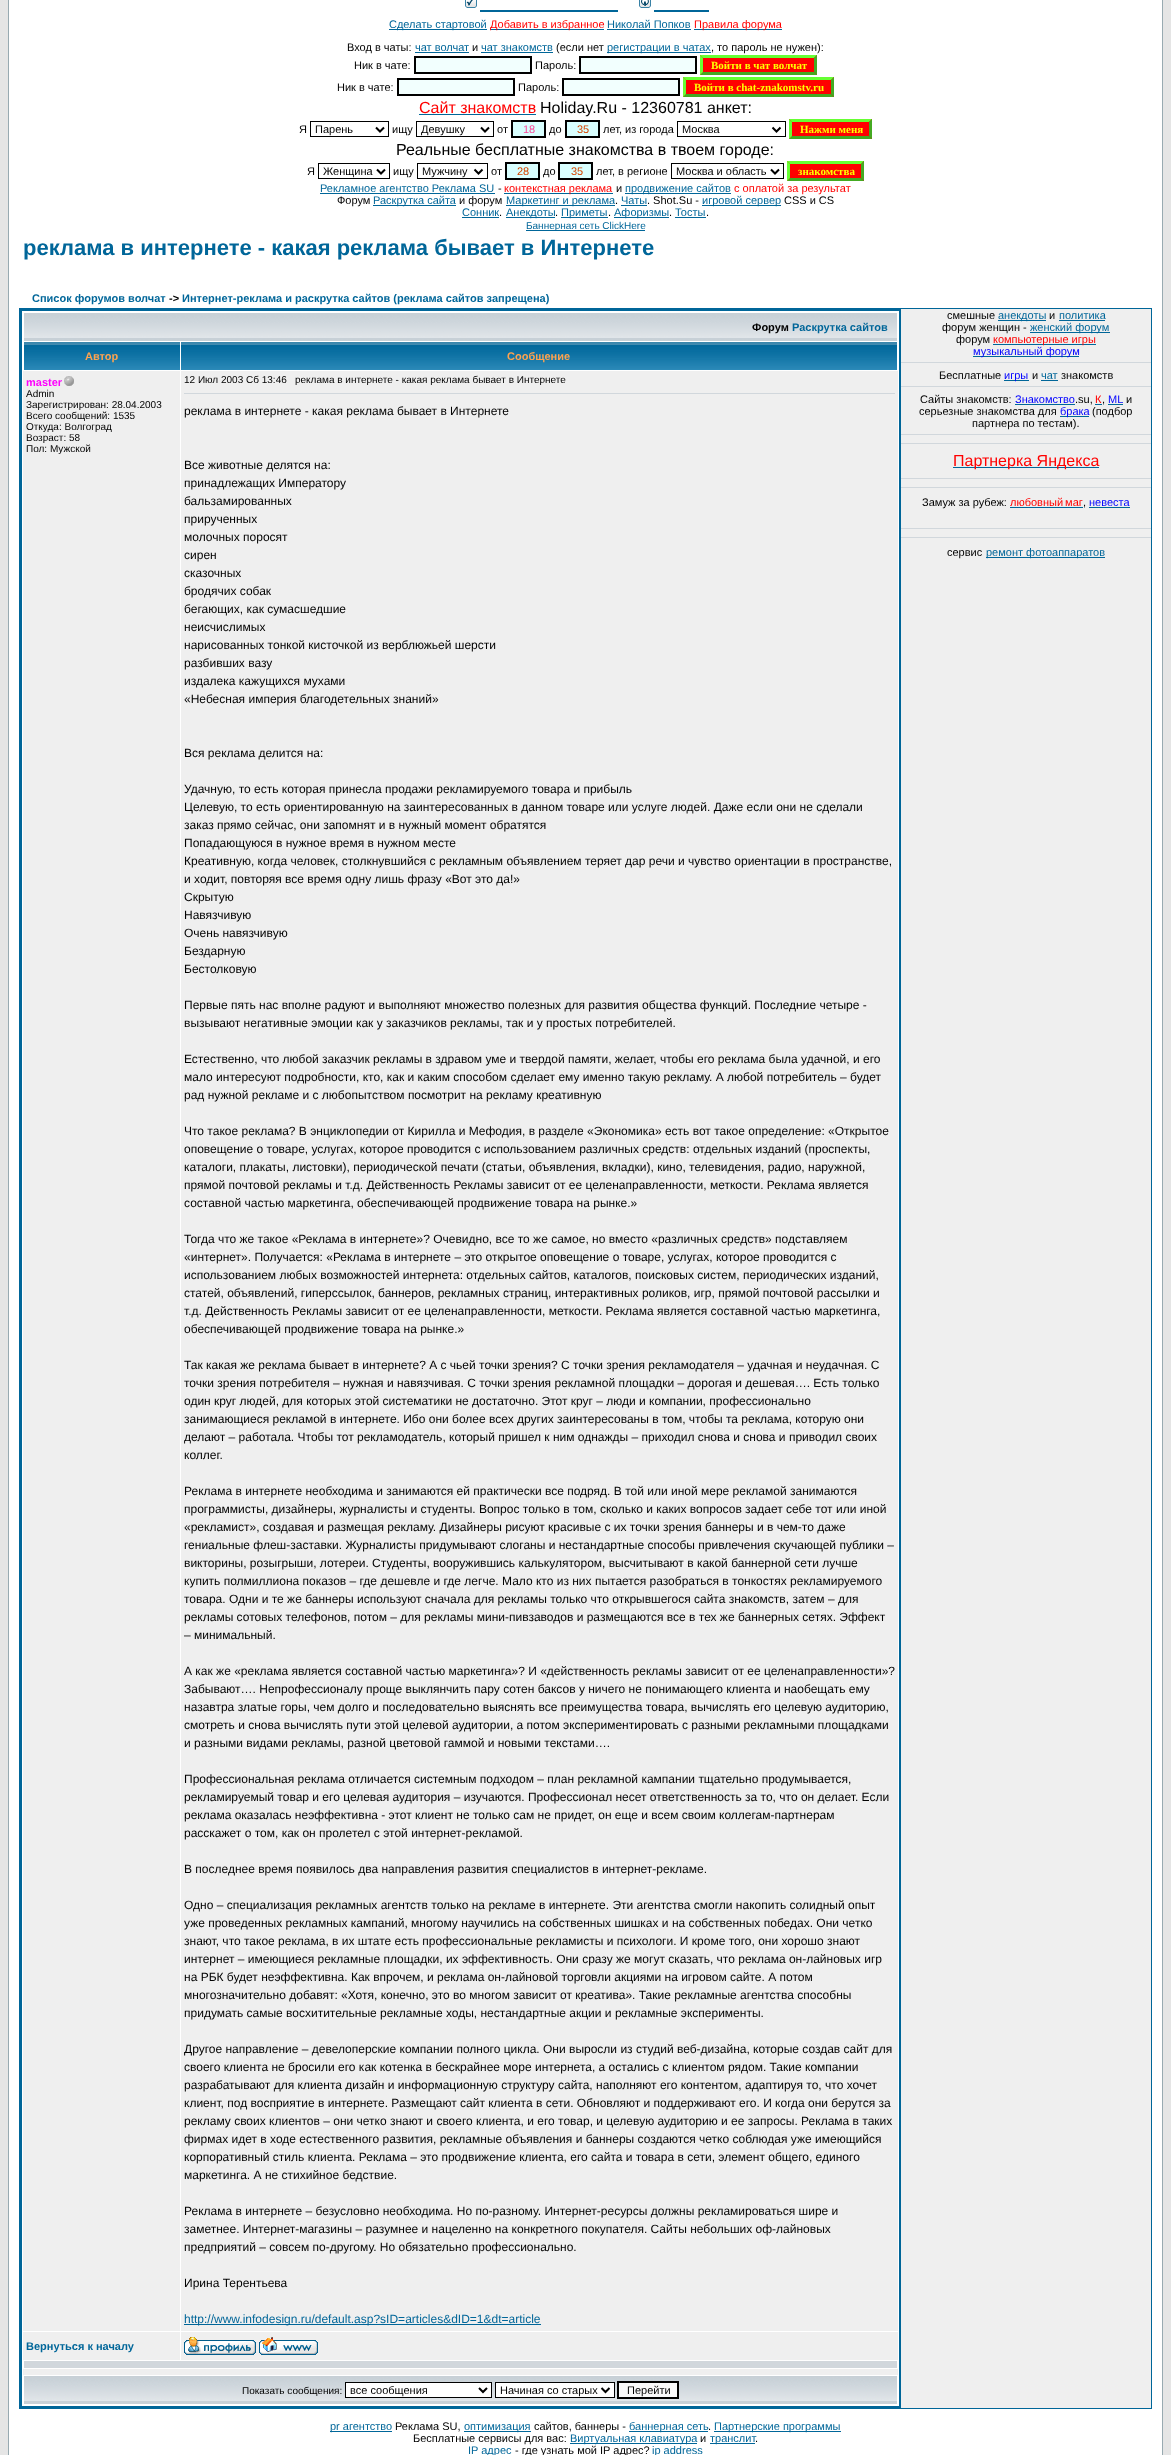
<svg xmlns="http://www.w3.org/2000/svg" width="1171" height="2455">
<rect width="100%" height="100%" fill="#e5e5e5"/>
<rect x="8.5" y="-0.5" width="1154" height="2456" fill="#fff" stroke="#98aab1"/>
<image x="465" y="0" width="12" height="8" href="media/1.png"/>
<image x="639" y="0" width="12" height="8" href="media/2.png"/>
<rect x="480" y="10" width="138" height="2" fill="#069"/>
<rect x="654" y="10" width="55" height="2" fill="#069"/>
<rect x="389" y="29" width="98" height="1" fill="#069"/>
<text x="389" y="28" style="font-family:Liberation Sans;font-size:11px;fill:#069">Сделать стартовой</text>
<rect x="490" y="29" width="114" height="1" fill="#069"/>
<text x="490" y="28" style="font-family:Liberation Sans;font-size:11px;fill:#f00">Добавить в избранное</text>
<text x="607" y="28" style="font-family:Liberation Sans;font-size:11px;fill:#069">Николай Попков</text>
<rect x="607" y="29" width="84" height="1" fill="#069"/>
<rect x="694" y="29" width="88" height="1" fill="#069"/>
<text x="694" y="28" style="font-family:Liberation Sans;font-size:11px;fill:#f00">Правила форума</text>
<text x="347" y="51" style="font-family:Liberation Sans;font-size:11px;fill:#000">Вход в чаты:</text>
<text x="415" y="51" style="font-family:Liberation Sans;font-size:11px;fill:#069">чат волчат</text>
<rect x="415" y="52" width="54" height="1" fill="#069"/>
<text x="472" y="51" style="font-family:Liberation Sans;font-size:11px;fill:#000">и</text>
<text x="481" y="51" style="font-family:Liberation Sans;font-size:11px;fill:#069">чат знакомств</text>
<rect x="481" y="52" width="72" height="1" fill="#069"/>
<text x="556" y="51" style="font-family:Liberation Sans;font-size:11px;fill:#000">(если нет</text>
<rect x="607" y="52" width="104" height="1" fill="#069"/>
<text x="607" y="51" style="font-family:Liberation Sans;font-size:11px;fill:#069">регистрации в чатах</text>
<text x="711" y="51" style="font-family:Liberation Sans;font-size:11px;fill:#000">, то пароль не нужен):</text>
<text x="354" y="69" style="font-family:Liberation Sans;font-size:11px;fill:#000">Ник в чате:</text>
<rect x="415" y="57" width="116" height="16" fill="#f2fffe" stroke="#000" stroke-width="2"/>
<text x="535" y="69" style="font-family:Liberation Sans;font-size:11px;fill:#000">Пароль:</text>
<rect x="580" y="57" width="116" height="16" fill="#f2fffe" stroke="#000" stroke-width="2"/>
<rect x="700" y="55" width="117" height="20" fill="#f00"/>
<path d="M700 55h117l-3 3h-111z" fill="#6f3"/>
<path d="M817 55v20l-3-3v-14z" fill="#4a2"/>
<path d="M817 75h-117l3-3h111z" fill="#4a2"/>
<path d="M700 75v-20l3 3v14z" fill="#6f3"/>
<text x="711" y="69" style="font-family:Liberation Serif;font-size:11px;font-weight:bold;fill:#ff0">Войти в чат волчат</text>
<text x="337" y="91" style="font-family:Liberation Sans;font-size:11px;fill:#000">Ник в чате:</text>
<rect x="398" y="79" width="116" height="16" fill="#f2fffe" stroke="#000" stroke-width="2"/>
<text x="518" y="91" style="font-family:Liberation Sans;font-size:11px;fill:#000">Пароль:</text>
<rect x="563" y="79" width="116" height="16" fill="#f2fffe" stroke="#000" stroke-width="2"/>
<rect x="683" y="77" width="151" height="20" fill="#f00"/>
<path d="M683 77h151l-3 3h-145z" fill="#6f3"/>
<path d="M834 77v20l-3-3v-14z" fill="#4a2"/>
<path d="M834 97h-151l3-3h145z" fill="#4a2"/>
<path d="M683 97v-20l3 3v14z" fill="#6f3"/>
<text x="694" y="91" style="font-family:Liberation Serif;font-size:11px;font-weight:bold;fill:#ff0">Войти в chat-znakomstv.ru</text>
<text x="419" y="113" style="font-family:Liberation Sans;font-size:16px;fill:#f00">Cайт знакомств</text>
<rect x="419" y="114" width="117" height="1" fill="#069"/>
<text x="540" y="113" style="font-family:Liberation Sans;font-size:16px;fill:#000">Holiday.Ru - 12360781 анкет:</text>
<text x="299" y="133" style="font-family:Liberation Sans;font-size:11px;fill:#000">Я</text>
<rect x="310.5" y="121.5" width="78" height="15" fill="none" stroke="#000"/>
<path d="M376 127.5l4 4l4-4" fill="none" stroke="#000" stroke-width="2"/>
<text x="315" y="133" style="font-family:Liberation Sans;font-size:11px;fill:#000">Парень</text>
<text x="392" y="133" style="font-family:Liberation Sans;font-size:11px;fill:#000">ищу</text>
<rect x="416.5" y="121.5" width="77" height="15" fill="none" stroke="#000"/>
<path d="M481 127.5l4 4l4-4" fill="none" stroke="#000" stroke-width="2"/>
<text x="421" y="133" style="font-family:Liberation Sans;font-size:11px;fill:#000">Девушку</text>
<text x="497" y="133" style="font-family:Liberation Sans;font-size:11px;fill:#000">от</text>
<rect x="512" y="121" width="33" height="16" fill="#d9ffff" stroke="#000" stroke-width="2"/>
<text x="523" y="133" style="font-family:Liberation Sans;font-size:11px;fill:#f94697">18</text>
<text x="549" y="133" style="font-family:Liberation Sans;font-size:11px;fill:#000">до</text>
<rect x="566" y="121" width="33" height="16" fill="#d9ffff" stroke="#000" stroke-width="2"/>
<text x="577" y="133" style="font-family:Liberation Sans;font-size:11px;fill:#d54500">35</text>
<text x="603" y="133" style="font-family:Liberation Sans;font-size:11px;fill:#000">лет, из города</text>
<rect x="677.5" y="121.5" width="108" height="15" fill="none" stroke="#000"/>
<path d="M772.5 127.5l4 4l4-4" fill="none" stroke="#000" stroke-width="2"/>
<text x="682" y="133" style="font-family:Liberation Sans;font-size:11px;fill:#000">Москва</text>
<rect x="789" y="119" width="83" height="20" fill="#f00"/>
<path d="M789 119h83l-3 3h-77z" fill="#6f3"/>
<path d="M872 119v20l-3-3v-14z" fill="#4a2"/>
<path d="M872 139h-83l3-3h77z" fill="#4a2"/>
<path d="M789 139v-20l3 3v14z" fill="#6f3"/>
<text x="800" y="133" style="font-family:Liberation Serif;font-size:11px;font-weight:bold;fill:#ff0">Нажми меня</text>
<text x="396" y="155" style="font-family:Liberation Sans;font-size:16px;fill:#000">Реальные бесплатные знакомства в твоем городе:</text>
<text x="307" y="175" style="font-family:Liberation Sans;font-size:11px;fill:#000">Я</text>
<rect x="318.5" y="163.5" width="71" height="15" fill="none" stroke="#000"/>
<path d="M377 169.5l4 4l4-4" fill="none" stroke="#000" stroke-width="2"/>
<text x="323" y="175" style="font-family:Liberation Sans;font-size:11px;fill:#000">Женщина</text>
<text x="393" y="175" style="font-family:Liberation Sans;font-size:11px;fill:#000">ищу</text>
<rect x="417.5" y="163.5" width="70" height="15" fill="none" stroke="#000"/>
<path d="M474.5 169.5l4 4l4-4" fill="none" stroke="#000" stroke-width="2"/>
<text x="422" y="175" style="font-family:Liberation Sans;font-size:11px;fill:#000">Мужчину</text>
<text x="491" y="175" style="font-family:Liberation Sans;font-size:11px;fill:#000">от</text>
<rect x="506" y="163" width="33" height="16" fill="#d9ffff" stroke="#000" stroke-width="2"/>
<text x="517" y="175" style="font-family:Liberation Sans;font-size:11px;fill:#d54500">28</text>
<text x="543" y="175" style="font-family:Liberation Sans;font-size:11px;fill:#000">до</text>
<rect x="559" y="163" width="33" height="16" fill="#d9ffff" stroke="#000" stroke-width="2"/>
<text x="571" y="175" style="font-family:Liberation Sans;font-size:11px;fill:#d54500">35</text>
<text x="596" y="175" style="font-family:Liberation Sans;font-size:11px;fill:#000">лет, в регионе</text>
<rect x="671.5" y="163.5" width="112" height="15" fill="none" stroke="#000"/>
<path d="M771 169.5l4 4l4-4" fill="none" stroke="#000" stroke-width="2"/>
<text x="676" y="175" style="font-family:Liberation Sans;font-size:11px;fill:#000">Москва и область</text>
<rect x="787" y="161" width="77" height="20" fill="#f00"/>
<path d="M787 161h77l-3 3h-71z" fill="#6f3"/>
<path d="M864 161v20l-3-3v-14z" fill="#4a2"/>
<path d="M864 181h-77l3-3h71z" fill="#4a2"/>
<path d="M787 181v-20l3 3v14z" fill="#6f3"/>
<text x="798" y="175" style="font-family:Liberation Serif;font-size:11px;font-weight:bold;fill:#ff0">знакомства</text>
<text x="320" y="192" style="font-family:Liberation Sans;font-size:11px;fill:#069">Рекламное агентство Реклама SU</text>
<rect x="320" y="193" width="175" height="1" fill="#069"/>
<text x="498" y="192" style="font-family:Liberation Sans;font-size:11px;fill:#000">-</text>
<rect x="504" y="193" width="109" height="1" fill="#069"/>
<text x="504" y="192" style="font-family:Liberation Sans;font-size:11px;fill:#f00">контекстная реклама</text>
<text x="616" y="192" style="font-family:Liberation Sans;font-size:11px;fill:#000">и</text>
<rect x="625" y="193" width="106" height="1" fill="#069"/>
<text x="625" y="192" style="font-family:Liberation Sans;font-size:11px;fill:#069">продвижение сайтов</text>
<text x="734" y="192" style="font-family:Liberation Sans;font-size:11px;fill:#f00">с оплатой за результат</text>
<text x="337" y="204" style="font-family:Liberation Sans;font-size:11px;fill:#000">Форум</text>
<rect x="373" y="205" width="83" height="1" fill="#069"/>
<text x="373" y="204" style="font-family:Liberation Sans;font-size:11px;fill:#069">Раскрутка сайта</text>
<text x="459" y="204" style="font-family:Liberation Sans;font-size:11px;fill:#000">и форум</text>
<rect x="506" y="205" width="109" height="1" fill="#069"/>
<text x="506" y="204" style="font-family:Liberation Sans;font-size:11px;fill:#069">Маркетинг и реклама</text>
<text x="615" y="204" style="font-family:Liberation Sans;font-size:11px;fill:#000">.</text>
<text x="621" y="204" style="font-family:Liberation Sans;font-size:11px;fill:#069">Чаты</text>
<rect x="621" y="205" width="26" height="1" fill="#069"/>
<text x="647" y="204" style="font-family:Liberation Sans;font-size:11px;fill:#000">. Shot.Su -</text>
<rect x="702" y="205" width="79" height="1" fill="#069"/>
<text x="702" y="204" style="font-family:Liberation Sans;font-size:11px;fill:#069">игровой сервер</text>
<text x="784" y="204" style="font-family:Liberation Sans;font-size:11px;fill:#000">CSS и CS</text>
<text x="462" y="216" style="font-family:Liberation Sans;font-size:11px;fill:#069">Сонник</text>
<rect x="462" y="217" width="37" height="1" fill="#069"/>
<text x="499" y="216" style="font-family:Liberation Sans;font-size:11px;fill:#000">.</text>
<rect x="506" y="217" width="49" height="1" fill="#069"/>
<text x="506" y="216" style="font-family:Liberation Sans;font-size:11px;fill:#069">Анекдоты</text>
<text x="555" y="216" style="font-family:Liberation Sans;font-size:11px;fill:#000">.</text>
<rect x="561" y="217" width="47" height="1" fill="#069"/>
<text x="561" y="216" style="font-family:Liberation Sans;font-size:11px;fill:#069">Приметы</text>
<text x="608" y="216" style="font-family:Liberation Sans;font-size:11px;fill:#000">.</text>
<rect x="614" y="217" width="55" height="1" fill="#069"/>
<text x="614" y="216" style="font-family:Liberation Sans;font-size:11px;fill:#069">Aфоризмы</text>
<text x="669" y="216" style="font-family:Liberation Sans;font-size:11px;fill:#000">.</text>
<text x="675" y="216" style="font-family:Liberation Sans;font-size:11px;fill:#069">Тосты</text>
<rect x="675" y="217" width="31" height="1" fill="#069"/>
<text x="706" y="216" style="font-family:Liberation Sans;font-size:11px;fill:#000">.</text>
<rect x="526" y="230" width="119" height="1" fill="#069"/>
<text x="526" y="229" style="font-family:Liberation Sans;font-size:10px;fill:#069">Баннерная сеть ClickHere</text>
<text x="23" y="255" style="font-family:Liberation Sans;font-size:22px;font-weight:bold;fill:#069">реклама в интернете - какая реклама бывает в Интернете</text>
<text x="32" y="302" style="font-family:Liberation Sans;font-size:11px;font-weight:bold;fill:#069">Список форумов волчат</text>
<text x="169" y="302" style="font-family:Liberation Sans;font-size:11px;font-weight:bold;fill:#000">-&gt;</text>
<text x="182" y="302" style="font-family:Liberation Sans;font-size:11px;font-weight:bold;fill:#069">Интернет-реклама и раскрутка сайтов (реклама сайтов запрещена)</text>
<rect x="901" y="309" width="250" height="2099" fill="#efefef"/>
<rect x="19.5" y="308.5" width="1132" height="2100" fill="none" stroke="#069"/>
<rect x="21" y="310" width="879" height="2097" fill="none" stroke="#069" stroke-width="2"/>
<image x="24" y="313" width="873" height="28" href="media/3.png"/>
<text x="752" y="331" style="font-family:Liberation Sans;font-size:11px;font-weight:bold;fill:#000">Форум</text>
<text x="792" y="331" style="font-family:Liberation Sans;font-size:11px;font-weight:bold;fill:#069">Раскрутка сайтов</text>
<image x="24" y="342" width="156" height="28" href="media/4.png"/>
<text x="85" y="360" style="font-family:Liberation Sans;font-size:11px;font-weight:bold;fill:#ffa34f">Автор</text>
<image x="181" y="342" width="716" height="28" href="media/5.png"/>
<text x="507" y="360" style="font-family:Liberation Sans;font-size:11px;font-weight:bold;fill:#ffa34f">Сообщение</text>
<rect x="23" y="371" width="157" height="1960" fill="#efefef"/>
<text x="26" y="386" style="font-family:Liberation Sans;font-size:11px;font-weight:bold;fill:#fe00fe">master</text>
<image x="64" y="376" width="10" height="10" href="media/6.png"/>
<text x="26" y="397" style="font-family:Liberation Sans;font-size:10px;fill:#000">Admin</text>
<text x="26" y="408" style="font-family:Liberation Sans;font-size:10px;fill:#000">Зарегистрирован: 28.04.2003</text>
<text x="26" y="419" style="font-family:Liberation Sans;font-size:10px;fill:#000">Всего сообщений: 1535</text>
<text x="26" y="430" style="font-family:Liberation Sans;font-size:10px;fill:#000">Откуда: Волгоград</text>
<text x="26" y="441" style="font-family:Liberation Sans;font-size:10px;fill:#000">Возраст: 58</text>
<text x="26" y="452" style="font-family:Liberation Sans;font-size:10px;fill:#000">Пол: Мужской</text>
<rect x="181" y="371" width="717" height="1960" fill="#efefef"/>
<text x="184" y="383" style="font-family:Liberation Sans;font-size:10px;fill:#000">12 Июл 2003 Сб 13:46</text>
<text x="295" y="383" style="font-family:Liberation Sans;font-size:10px;fill:#000">реклама в интернете - какая реклама бывает в Интернете</text>
<rect x="184" y="393" width="711" height="1" fill="#d1d7dc"/>
<text x="184" y="415" style="font-family:Liberation Sans;font-size:12px;fill:#000">реклама в интернете - какая реклама бывает в Интернете</text>
<text x="184" y="469" style="font-family:Liberation Sans;font-size:12px;fill:#000">Все животные делятся на:</text>
<text x="184" y="487" style="font-family:Liberation Sans;font-size:12px;fill:#000">принадлежащих Императору</text>
<text x="184" y="505" style="font-family:Liberation Sans;font-size:12px;fill:#000">бальзамированных</text>
<text x="184" y="523" style="font-family:Liberation Sans;font-size:12px;fill:#000">прирученных</text>
<text x="184" y="541" style="font-family:Liberation Sans;font-size:12px;fill:#000">молочных поросят</text>
<text x="184" y="559" style="font-family:Liberation Sans;font-size:12px;fill:#000">сирен</text>
<text x="184" y="577" style="font-family:Liberation Sans;font-size:12px;fill:#000">сказочных</text>
<text x="184" y="595" style="font-family:Liberation Sans;font-size:12px;fill:#000">бродячих собак</text>
<text x="184" y="613" style="font-family:Liberation Sans;font-size:12px;fill:#000">бегающих, как сумасшедшие</text>
<text x="184" y="631" style="font-family:Liberation Sans;font-size:12px;fill:#000">неисчислимых</text>
<text x="184" y="649" style="font-family:Liberation Sans;font-size:12px;fill:#000">нарисованных тонкой кисточкой из верблюжьей шерсти</text>
<text x="184" y="667" style="font-family:Liberation Sans;font-size:12px;fill:#000">разбивших вазу</text>
<text x="184" y="685" style="font-family:Liberation Sans;font-size:12px;fill:#000">издалека кажущихся мухами</text>
<text x="184" y="703" style="font-family:Liberation Sans;font-size:12px;fill:#000">«Небесная империя благодетельных знаний»</text>
<text x="184" y="757" style="font-family:Liberation Sans;font-size:12px;fill:#000">Вся реклама делится на:</text>
<text x="184" y="793" style="font-family:Liberation Sans;font-size:12px;fill:#000">Удачную, то есть которая принесла продажи рекламируемого товара и прибыль</text>
<text x="184" y="811" style="font-family:Liberation Sans;font-size:12px;fill:#000">Целевую, то есть ориентированную на заинтересованных в данном товаре или услуге людей. Даже если они не сделали</text>
<text x="184" y="829" style="font-family:Liberation Sans;font-size:12px;fill:#000">заказ прямо сейчас, они запомнят и в нужный момент обратятся</text>
<text x="184" y="847" style="font-family:Liberation Sans;font-size:12px;fill:#000">Попадающуюся в нужное время в нужном месте</text>
<text x="184" y="865" style="font-family:Liberation Sans;font-size:12px;fill:#000">Креативную, когда человек, столкнувшийся с рекламным объявлением теряет дар речи и чувство ориентации в пространстве,</text>
<text x="184" y="883" style="font-family:Liberation Sans;font-size:12px;fill:#000">и ходит, повторяя все время одну лишь фразу «Вот это да!»</text>
<text x="184" y="901" style="font-family:Liberation Sans;font-size:12px;fill:#000">Скрытую</text>
<text x="184" y="919" style="font-family:Liberation Sans;font-size:12px;fill:#000">Навязчивую</text>
<text x="184" y="937" style="font-family:Liberation Sans;font-size:12px;fill:#000">Очень навязчивую</text>
<text x="184" y="955" style="font-family:Liberation Sans;font-size:12px;fill:#000">Бездарную</text>
<text x="184" y="973" style="font-family:Liberation Sans;font-size:12px;fill:#000">Бестолковую</text>
<text x="184" y="1009" style="font-family:Liberation Sans;font-size:12px;fill:#000">Первые пять нас вполне радуют и выполняют множество полезных для развития общества функций. Последние четыре -</text>
<text x="184" y="1027" style="font-family:Liberation Sans;font-size:12px;fill:#000">вызывают негативные эмоции как у заказчиков рекламы, так и у простых потребителей.</text>
<text x="184" y="1063" style="font-family:Liberation Sans;font-size:12px;fill:#000">Естественно, что любой заказчик рекламы в здравом уме и твердой памяти, желает, чтобы его реклама была удачной, и его</text>
<text x="184" y="1081" style="font-family:Liberation Sans;font-size:12px;fill:#000">мало интересуют подробности, кто, как и каким способом сделает ему именно такую рекламу. А любой потребитель – будет</text>
<text x="184" y="1099" style="font-family:Liberation Sans;font-size:12px;fill:#000">рад нужной рекламе и с любопытством посмотрит на рекламу креативную</text>
<text x="184" y="1135" style="font-family:Liberation Sans;font-size:12px;fill:#000">Что такое реклама? В энциклопедии от Кирилла и Мефодия, в разделе «Экономика» есть вот такое определение: «Открытое</text>
<text x="184" y="1153" style="font-family:Liberation Sans;font-size:12px;fill:#000">оповещение о товаре, услугах, которое проводится с использованием различных средств: отдельных изданий (проспекты,</text>
<text x="184" y="1171" style="font-family:Liberation Sans;font-size:12px;fill:#000">каталоги, плакаты, листовки), периодической печати (статьи, объявления, вкладки), кино, телевидения, радио, наружной,</text>
<text x="184" y="1189" style="font-family:Liberation Sans;font-size:12px;fill:#000">прямой почтовой рекламы и т.д. Действенность Рекламы зависит от ее целенаправленности, меткости. Реклама является</text>
<text x="184" y="1207" style="font-family:Liberation Sans;font-size:12px;fill:#000">составной частью маркетинга, обеспечивающей продвижение товара на рынке.»</text>
<text x="184" y="1243" style="font-family:Liberation Sans;font-size:12px;fill:#000">Тогда что же такое «Реклама в интернете»? Очевидно, все то же самое, но вместо «различных средств» подставляем</text>
<text x="184" y="1261" style="font-family:Liberation Sans;font-size:12px;fill:#000">«интернет». Получается: «Реклама в интернете – это открытое оповещение о товаре, услугах, которое проводится с</text>
<text x="184" y="1279" style="font-family:Liberation Sans;font-size:12px;fill:#000">использованием любых возможностей интернета: отдельных сайтов, каталогов, поисковых систем, периодических изданий,</text>
<text x="184" y="1297" style="font-family:Liberation Sans;font-size:12px;fill:#000">статей, объявлений, гиперссылок, баннеров, рекламных страниц, интерактивных роликов, игр, прямой почтовой рассылки и</text>
<text x="184" y="1315" style="font-family:Liberation Sans;font-size:12px;fill:#000">т.д. Действенность Рекламы зависит от ее целенаправленности, меткости. Реклама является составной частью маркетинга,</text>
<text x="184" y="1333" style="font-family:Liberation Sans;font-size:12px;fill:#000">обеспечивающей продвижение товара на рынке.»</text>
<text x="184" y="1369" style="font-family:Liberation Sans;font-size:12px;fill:#000">Так какая же реклама бывает в интернете? А с чьей точки зрения? С точки зрения рекламодателя – удачная и неудачная. С</text>
<text x="184" y="1387" style="font-family:Liberation Sans;font-size:12px;fill:#000">точки зрения потребителя – нужная и навязчивая. С точки зрения рекламной площадки – дорогая и дешевая…. Есть только</text>
<text x="184" y="1405" style="font-family:Liberation Sans;font-size:12px;fill:#000">один круг людей, для которых этой систематики не достаточно. Этот круг – люди и компании, профессионально</text>
<text x="184" y="1423" style="font-family:Liberation Sans;font-size:12px;fill:#000">занимающиеся рекламой в интернете. Ибо они более всех других заинтересованы в том, чтобы та реклама, которую они</text>
<text x="184" y="1441" style="font-family:Liberation Sans;font-size:12px;fill:#000">делают – работала. Чтобы тот рекламодатель, который пришел к ним однажды – приходил снова и снова и приводил своих</text>
<text x="184" y="1459" style="font-family:Liberation Sans;font-size:12px;fill:#000">коллег.</text>
<text x="184" y="1495" style="font-family:Liberation Sans;font-size:12px;fill:#000">Реклама в интернете необходима и занимаются ей практически все подряд. В той или иной мере рекламой занимаются</text>
<text x="184" y="1513" style="font-family:Liberation Sans;font-size:12px;fill:#000">программисты, дизайнеры, журналисты и студенты. Вопрос только в том, сколько и каких вопросов задает себе тот или иной</text>
<text x="184" y="1531" style="font-family:Liberation Sans;font-size:12px;fill:#000">«рекламист», создавая и размещая рекламу. Дизайнеры рисуют красивые с их точки зрения баннеры и в чем-то даже</text>
<text x="184" y="1549" style="font-family:Liberation Sans;font-size:12px;fill:#000">гениальные флеш-заставки. Журналисты придумывают слоганы и нестандартные способы привлечения скучающей публики –</text>
<text x="184" y="1567" style="font-family:Liberation Sans;font-size:12px;fill:#000">викторины, розыгрыши, лотереи. Студенты, вооружившись калькулятором, высчитывают в какой баннерной сети лучше</text>
<text x="184" y="1585" style="font-family:Liberation Sans;font-size:12px;fill:#000">купить полмиллиона показов – где дешевле и где легче. Мало кто из них пытается разобраться в тонкостях рекламируемого</text>
<text x="184" y="1603" style="font-family:Liberation Sans;font-size:12px;fill:#000">товара. Одни и те же баннеры используют сначала для рекламы только что открывшегося сайта знакомств, затем – для</text>
<text x="184" y="1621" style="font-family:Liberation Sans;font-size:12px;fill:#000">рекламы сотовых телефонов, потом – для рекламы мини-пивзаводов и размещаются все в тех же баннерных сетях. Эффект</text>
<text x="184" y="1639" style="font-family:Liberation Sans;font-size:12px;fill:#000">– минимальный.</text>
<text x="184" y="1675" style="font-family:Liberation Sans;font-size:12px;fill:#000">А как же «реклама является составной частью маркетинга»? И «действенность рекламы зависит от ее целенаправленности»?</text>
<text x="184" y="1693" style="font-family:Liberation Sans;font-size:12px;fill:#000">Забывают…. Непрофессионалу проще выклянчить пару сотен баксов у ничего не понимающего клиента и наобещать ему</text>
<text x="184" y="1711" style="font-family:Liberation Sans;font-size:12px;fill:#000">назавтра златые горы, чем долго и последовательно выяснять все преимущества товара, вычислять его целевую аудиторию,</text>
<text x="184" y="1729" style="font-family:Liberation Sans;font-size:12px;fill:#000">смотреть и снова вычислять пути этой целевой аудитории, а потом экспериментировать с разными рекламными площадками</text>
<text x="184" y="1747" style="font-family:Liberation Sans;font-size:12px;fill:#000">и разными видами рекламы, разной цветовой гаммой и новыми текстами….</text>
<text x="184" y="1783" style="font-family:Liberation Sans;font-size:12px;fill:#000">Профессиональная реклама отличается системным подходом – план рекламной кампании тщательно продумывается,</text>
<text x="184" y="1801" style="font-family:Liberation Sans;font-size:12px;fill:#000">рекламируемый товар и его целевая аудитория – изучаются. Профессионал несет ответственность за то, что он делает. Если</text>
<text x="184" y="1819" style="font-family:Liberation Sans;font-size:12px;fill:#000">реклама оказалась неэффективна - этот клиент не только сам не придет, он еще и всем своим коллегам-партнерам</text>
<text x="184" y="1837" style="font-family:Liberation Sans;font-size:12px;fill:#000">расскажет о том, как он пролетел с этой интернет-рекламой.</text>
<text x="184" y="1873" style="font-family:Liberation Sans;font-size:12px;fill:#000">В последнее время появилось два направления развития специалистов в интернет-рекламе.</text>
<text x="184" y="1909" style="font-family:Liberation Sans;font-size:12px;fill:#000">Одно – специализация рекламных агентств только на рекламе в интернете. Эти агентства смогли накопить солидный опыт</text>
<text x="184" y="1927" style="font-family:Liberation Sans;font-size:12px;fill:#000">уже проведенных рекламных кампаний, многому научились на собственных шишках и на собственных победах. Они четко</text>
<text x="184" y="1945" style="font-family:Liberation Sans;font-size:12px;fill:#000">знают, что такое реклама, в их штате есть профессиональные рекламисты и психологи. И кроме того, они хорошо знают</text>
<text x="184" y="1963" style="font-family:Liberation Sans;font-size:12px;fill:#000">интернет – имеющиеся рекламные площадки, их эффективность. Они сразу же могут сказать, что реклама он-лайновых игр</text>
<text x="184" y="1981" style="font-family:Liberation Sans;font-size:12px;fill:#000">на РБК будет неэффективна. Как впрочем, и реклама он-лайновой торговли акциями на игровом сайте. А потом</text>
<text x="184" y="1999" style="font-family:Liberation Sans;font-size:12px;fill:#000">многозначительно добавят: «Хотя, конечно, это во многом зависит от креатива». Такие рекламные агентства способны</text>
<text x="184" y="2017" style="font-family:Liberation Sans;font-size:12px;fill:#000">придумать самые восхитительные рекламные ходы, нестандартные акции и рекламные эксперименты.</text>
<text x="184" y="2053" style="font-family:Liberation Sans;font-size:12px;fill:#000">Другое направление – девелоперские компании полного цикла. Они выросли из студий веб-дизайна, которые создав сайт для</text>
<text x="184" y="2071" style="font-family:Liberation Sans;font-size:12px;fill:#000">своего клиента не бросили его как котенка в бескрайнее море интернета, а остались с клиентом рядом. Такие компании</text>
<text x="184" y="2089" style="font-family:Liberation Sans;font-size:12px;fill:#000">разрабатывают для клиента дизайн и информационную структуру сайта, наполняют его контентом, адаптируя то, что хочет</text>
<text x="184" y="2107" style="font-family:Liberation Sans;font-size:12px;fill:#000">клиент, под восприятие в интернете. Размещают сайт клиента в сети. Обновляют и поддерживают его. И когда они берутся за</text>
<text x="184" y="2125" style="font-family:Liberation Sans;font-size:12px;fill:#000">рекламу своих клиентов – они четко знают и своего клиента, и его товар, и целевую аудиторию и ее запросы. Реклама в таких</text>
<text x="184" y="2143" style="font-family:Liberation Sans;font-size:12px;fill:#000">фирмах идет в ходе естественного развития, рекламные объявления и баннеры создаются четко соблюдая уже имеющийся</text>
<text x="184" y="2161" style="font-family:Liberation Sans;font-size:12px;fill:#000">корпоративный стиль клиента. Реклама – это продвижение клиента, его сайта и товара в сети, элемент общего, единого</text>
<text x="184" y="2179" style="font-family:Liberation Sans;font-size:12px;fill:#000">маркетинга. А не стихийное бедствие.</text>
<text x="184" y="2215" style="font-family:Liberation Sans;font-size:12px;fill:#000">Реклама в интернете – безусловно необходима. Но по-разному. Интернет-ресурсы должны рекламироваться шире и</text>
<text x="184" y="2233" style="font-family:Liberation Sans;font-size:12px;fill:#000">заметнее. Интернет-магазины – разумнее и нацеленно на конкретного покупателя. Сайты небольших оф-лайновых</text>
<text x="184" y="2251" style="font-family:Liberation Sans;font-size:12px;fill:#000">предприятий – совсем по-другому. Но обязательно профессионально.</text>
<text x="184" y="2287" style="font-family:Liberation Sans;font-size:12px;fill:#000">Ирина Терентьева</text>
<rect x="184" y="2324" width="357" height="1" fill="#069"/>
<text x="184" y="2323" style="font-family:Liberation Sans;font-size:12px;fill:#069">http://www.infodesign.ru/default.asp?sID=articles&amp;dID=1&amp;dt=article</text>
<rect x="23" y="2332" width="157" height="28" fill="#efefef"/>
<text x="26" y="2350" style="font-family:Liberation Sans;font-size:11px;font-weight:bold;fill:#069">Вернуться к началу</text>
<rect x="181" y="2332" width="717" height="28" fill="#efefef"/>
<image x="184" y="2337" width="72" height="18" href="media/7.png"/>
<image x="259" y="2337" width="59" height="18" href="media/8.png"/>
<rect x="24" y="2361" width="873" height="7" fill="#d1d7dc"/>
<rect x="23" y="2369" width="875" height="6" fill="#efefef"/>
<image x="24" y="2376" width="873" height="28" href="media/3.png"/>
<text x="242" y="2394" style="font-family:Liberation Sans;font-size:10px;fill:#000">Показать сообщения:</text>
<rect x="345.5" y="2382.5" width="146" height="15" fill="#fff" stroke="#000"/>
<path d="M479 2388l4 4l4-4" fill="none" stroke="#000" stroke-width="2"/>
<text x="350" y="2394" style="font-family:Liberation Sans;font-size:11px;fill:#000">все сообщения</text>
<rect x="495.5" y="2382.5" width="119" height="15" fill="#fff" stroke="#000"/>
<path d="M601.5 2388l4 4l4-4" fill="none" stroke="#000" stroke-width="2"/>
<text x="500" y="2394" style="font-family:Liberation Sans;font-size:11px;fill:#000">Начиная со старых</text>
<rect x="618" y="2382" width="60" height="16" fill="#fafafa" stroke="#000" stroke-width="2"/>
<text x="627" y="2394" style="font-family:Liberation Sans;font-size:11px;fill:#000">Перейти</text>
<text x="947" y="319" style="font-family:Liberation Sans;font-size:11px;fill:#000">смешные</text>
<rect x="998" y="320" width="48" height="1" fill="#069"/>
<text x="998" y="319" style="font-family:Liberation Sans;font-size:11px;fill:#069">анекдоты</text>
<text x="1049" y="319" style="font-family:Liberation Sans;font-size:11px;fill:#000">и</text>
<text x="1059" y="319" style="font-family:Liberation Sans;font-size:11px;fill:#069">политика</text>
<rect x="1059" y="320" width="46" height="1" fill="#069"/>
<text x="942" y="331" style="font-family:Liberation Sans;font-size:11px;fill:#000">форум женщин -</text>
<rect x="1030" y="332" width="80" height="1" fill="#069"/>
<text x="1030" y="331" style="font-family:Liberation Sans;font-size:11px;fill:#069">женский форум</text>
<text x="956" y="343" style="font-family:Liberation Sans;font-size:11px;fill:#000">форум</text>
<rect x="993" y="344" width="103" height="1" fill="#069"/>
<text x="993" y="343" style="font-family:Liberation Sans;font-size:11px;fill:#f00">компьютерные игры</text>
<rect x="973" y="356" width="106" height="1" fill="#069"/>
<text x="973" y="355" style="font-family:Liberation Sans;font-size:11px;fill:#00f">музыкальный форум</text>
<rect x="901" y="362" width="250" height="1" fill="#d1d7dc"/>
<text x="939" y="379" style="font-family:Liberation Sans;font-size:11px;fill:#000">Бесплатные</text>
<rect x="1004" y="380" width="25" height="1" fill="#069"/>
<text x="1004" y="379" style="font-family:Liberation Sans;font-size:11px;fill:#00f">игры</text>
<text x="1032" y="379" style="font-family:Liberation Sans;font-size:11px;fill:#000">и</text>
<text x="1041" y="379" style="font-family:Liberation Sans;font-size:11px;fill:#069">чат</text>
<rect x="1041" y="380" width="17" height="1" fill="#069"/>
<text x="1061" y="379" style="font-family:Liberation Sans;font-size:11px;fill:#000">знакомств</text>
<rect x="901" y="386" width="250" height="1" fill="#d1d7dc"/>
<text x="920" y="403" style="font-family:Liberation Sans;font-size:11px;fill:#000">Сайты знакомств:</text>
<text x="1015" y="403" style="font-family:Liberation Sans;font-size:11px;fill:#00f">Знакомство</text>
<rect x="1015" y="404" width="60" height="1" fill="#069"/>
<text x="1075" y="403" style="font-family:Liberation Sans;font-size:11px;fill:#000">.su,</text>
<text x="1095" y="403" style="font-family:Liberation Sans;font-size:11px;fill:#f00">К</text>
<rect x="1095" y="404" width="7" height="1" fill="#069"/>
<text x="1102" y="403" style="font-family:Liberation Sans;font-size:11px;fill:#000">,</text>
<text x="1108" y="403" style="font-family:Liberation Sans;font-size:11px;fill:#00f">ML</text>
<rect x="1108" y="404" width="15" height="1" fill="#069"/>
<text x="1126" y="403" style="font-family:Liberation Sans;font-size:11px;fill:#000">и</text>
<text x="919" y="415" style="font-family:Liberation Sans;font-size:11px;fill:#000">серьезные знакомства для</text>
<rect x="1060" y="416" width="29" height="1" fill="#069"/>
<text x="1060" y="415" style="font-family:Liberation Sans;font-size:11px;fill:#00f">брака</text>
<text x="1092" y="415" style="font-family:Liberation Sans;font-size:11px;fill:#000">(подбор</text>
<text x="972" y="427" style="font-family:Liberation Sans;font-size:11px;fill:#000">партнера по тестам).</text>
<rect x="901" y="434" width="250" height="1" fill="#d1d7dc"/>
<rect x="901" y="443" width="250" height="1" fill="#d1d7dc"/>
<rect x="953" y="467" width="146" height="1" fill="#069"/>
<text x="953" y="466" style="font-family:Liberation Sans;font-size:16px;fill:#f00">Партнерка Яндекса</text>
<rect x="901" y="478" width="250" height="1" fill="#d1d7dc"/>
<rect x="901" y="487" width="250" height="1" fill="#d1d7dc"/>
<text x="922" y="506" style="font-family:Liberation Sans;font-size:11px;fill:#000">Замуж за рубеж:</text>
<text x="1010" y="506" word-spacing="-1" style="font-family:Liberation Sans;font-size:11px;fill:#f00">любовный маг</text>
<text x="1089" y="506" style="font-family:Liberation Sans;font-size:11px;fill:#00f">невеста</text>
<text x="1083" y="506" style="font-family:Liberation Sans;font-size:11px;fill:#000">,</text>
<rect x="1010" y="507" width="73" height="1" fill="#069"/>
<rect x="1089" y="507" width="41" height="1" fill="#069"/>
<rect x="901" y="528" width="250" height="1" fill="#d1d7dc"/>
<rect x="901" y="537" width="250" height="1" fill="#d1d7dc"/>
<text x="947" y="556" style="font-family:Liberation Sans;font-size:11px;fill:#000">сервис</text>
<rect x="986" y="557" width="119" height="1" fill="#069"/>
<text x="986" y="556" style="font-family:Liberation Sans;font-size:11px;fill:#069">ремонт фотоаппаратов</text>
<rect x="330" y="2431" width="62" height="1" fill="#069"/>
<text x="330" y="2430" style="font-family:Liberation Sans;font-size:11px;fill:#069">pr агентство</text>
<text x="395" y="2430" style="font-family:Liberation Sans;font-size:11px;fill:#000">Реклама SU,</text>
<rect x="464" y="2431" width="67" height="1" fill="#069"/>
<text x="464" y="2430" style="font-family:Liberation Sans;font-size:11px;fill:#069">оптимизация</text>
<text x="534" y="2430" style="font-family:Liberation Sans;font-size:11px;fill:#000">сайтов, баннеры -</text>
<rect x="629" y="2431" width="79" height="1" fill="#069"/>
<text x="629" y="2430" style="font-family:Liberation Sans;font-size:11px;fill:#069">баннерная сеть</text>
<text x="708" y="2430" style="font-family:Liberation Sans;font-size:11px;fill:#000">.</text>
<rect x="714" y="2431" width="127" height="1" fill="#069"/>
<text x="714" y="2430" style="font-family:Liberation Sans;font-size:11px;fill:#069">Партнерские программы</text>
<text x="413" y="2442" style="font-family:Liberation Sans;font-size:11px;fill:#000">Бесплатные сервисы для вас:</text>
<rect x="570" y="2443" width="127" height="1" fill="#069"/>
<text x="570" y="2442" style="font-family:Liberation Sans;font-size:11px;fill:#069">Виртуальная клавиатура</text>
<text x="700" y="2442" style="font-family:Liberation Sans;font-size:11px;fill:#000">и</text>
<rect x="710" y="2443" width="45" height="1" fill="#069"/>
<text x="710" y="2442" style="font-family:Liberation Sans;font-size:11px;fill:#069">транслит</text>
<text x="755" y="2442" style="font-family:Liberation Sans;font-size:11px;fill:#000">.</text>
<text x="468" y="2454" style="font-family:Liberation Sans;font-size:11px;fill:#069">IP адрес</text>
<text x="515" y="2454" style="font-family:Liberation Sans;font-size:11px;fill:#000">- где узнать мой IP адрес?</text>
<text x="652" y="2454" style="font-family:Liberation Sans;font-size:11px;fill:#069">ip address</text>
</svg>
